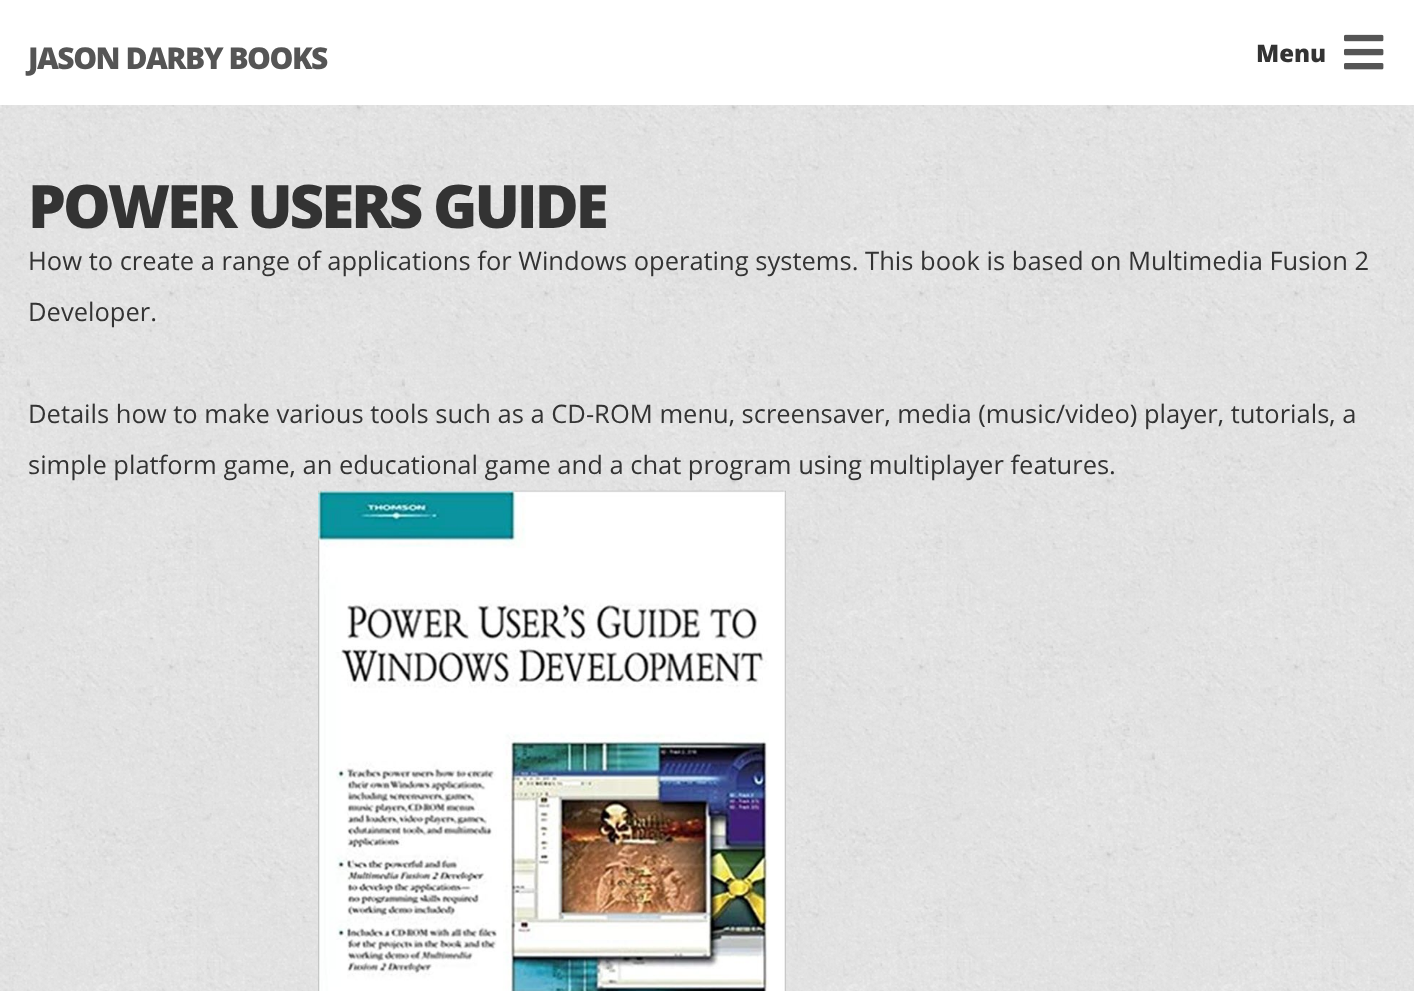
<svg xmlns="http://www.w3.org/2000/svg" width="1414" height="991">
<rect width="100%" height="100%" fill="#fff"/>
<text x="28" y="69" style="font-family:Open Sans;font-size:30px;font-weight:800;letter-spacing:-1.5px;fill:#555">JASON DARBY BOOKS</text>
<text x="1256" y="62" style="font-family:Open Sans;font-size:24px;font-weight:800;fill:#333">Menu</text>
<image x="1344" y="34" width="40" height="36" href="media/1.png"/>
<rect y="105" width="1414" height="886" fill="#ebebeb"/>
<image x="0" y="105" width="1414" height="886" href="media/2.png"/>
<text x="28" y="228" style="font-family:Open Sans;font-size:60px;font-weight:800;letter-spacing:-3px;fill:#333">POWER USERS GUIDE</text>
<text x="28" y="270" style="font-family:Open Sans;font-size:25.5px;fill:#333">How to create a range of applications for Windows operating systems. This book is based on Multimedia Fusion 2</text>
<text x="28" y="321" style="font-family:Open Sans;font-size:25.5px;fill:#333">Developer.</text>
<text x="28" y="423" style="font-family:Open Sans;font-size:25.5px;fill:#333">Details how to make various tools such as a CD-ROM menu, screensaver, media (music/video) player, tutorials, a</text>
<text x="28" y="474" style="font-family:Open Sans;font-size:25.5px;fill:#333">simple platform game, an educational game and a chat program using multiplayer features.</text>
<image x="318" y="490" width="468" height="501" href="media/3.png"/>
</svg>
